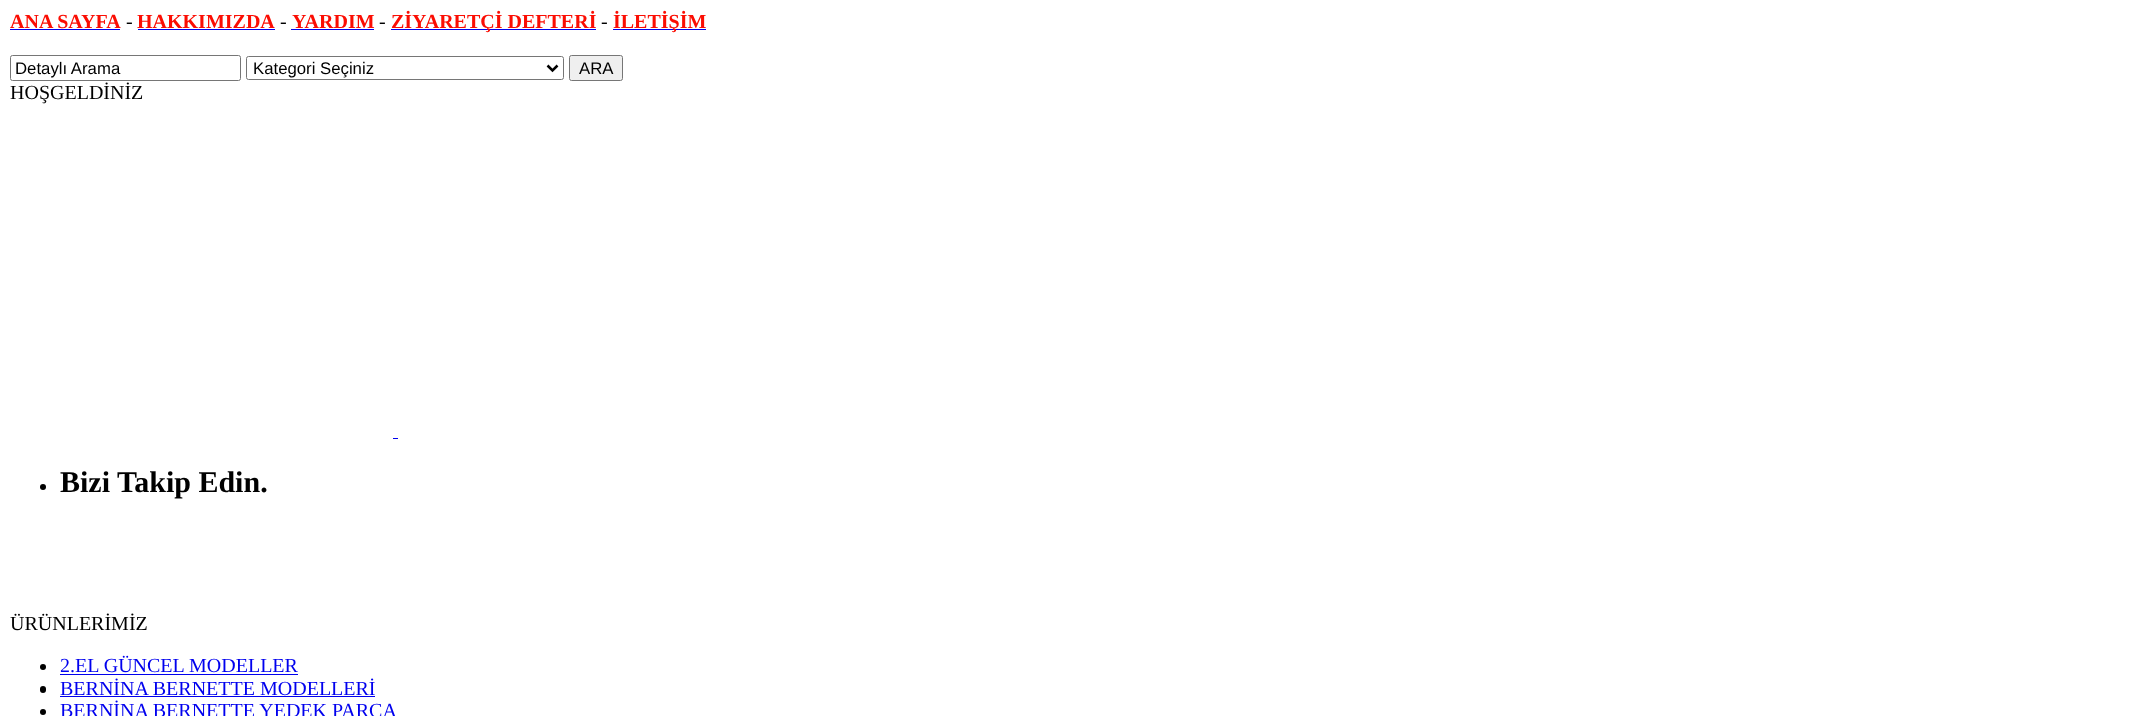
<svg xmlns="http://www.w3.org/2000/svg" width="2131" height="716">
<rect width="100%" height="100%" fill="#fff"/>
<text x="10" y="28" style="font-family:Liberation Serif;font-size:20px;font-weight:bold;fill:#fb0d03">ANA SAYFA</text>
<rect x="10" y="29" width="110" height="1" fill="#00e"/>
<text x="126" y="28" style="font-family:Liberation Serif;font-size:20px;fill:#000">-</text>
<text x="137" y="28" style="font-family:Liberation Serif;font-size:20px;font-weight:bold;fill:#fb0d03">HAKKIMIZDA</text>
<rect x="138" y="29" width="137" height="1" fill="#00e"/>
<text x="280" y="28" style="font-family:Liberation Serif;font-size:20px;fill:#000">-</text>
<text x="292" y="28" style="font-family:Liberation Serif;font-size:20px;font-weight:bold;fill:#fb0d03">YARDIM</text>
<rect x="291" y="29" width="83" height="1" fill="#00e"/>
<text x="379" y="28" style="font-family:Liberation Serif;font-size:20px;fill:#000">-</text>
<rect x="391" y="29" width="205" height="1" fill="#00e"/>
<text x="391" y="28" style="font-family:Liberation Serif;font-size:20px;font-weight:bold;fill:#fb0d03">ZİYARETÇİ DEFTERİ</text>
<text x="601" y="28" style="font-family:Liberation Serif;font-size:20px;fill:#000">-</text>
<rect x="613" y="29" width="93" height="1" fill="#00e"/>
<text x="613" y="28" style="font-family:Liberation Serif;font-size:20px;font-weight:bold;fill:#fb0d03">İLETİŞİM</text>
<rect x="10.5" y="55.5" width="230" height="25" rx="2" fill="none" stroke="#767676"/>
<text x="15" y="74" style="font-family:Liberation Sans;font-size:16.75px;fill:#000">Detaylı Arama</text>
<rect x="246.5" y="56.5" width="317" height="23" rx="2" fill="none" stroke="#767676"/>
<path d="M547.5 65.5l5 5l5-5" fill="none" stroke="#000" stroke-width="2.5"/>
<text x="253" y="74" style="font-family:Liberation Sans;font-size:16.75px;fill:#000">Kategori Seçiniz</text>
<rect x="569.5" y="55.5" width="53" height="25" rx="2" fill="#efefef" stroke="#767676"/>
<text x="579" y="74" style="font-family:Liberation Sans;font-size:16.75px;fill:#000">ARA</text>
<text x="10" y="99" style="font-family:Liberation Serif;font-size:20px;fill:#000">HOŞGELDİNİZ</text>
<rect x="393" y="438" width="5" height="1" fill="#00e"/>
<circle cx="43" cy="487" r="3" fill="#000"/>
<text x="60" y="492" style="font-family:Liberation Serif;font-size:30px;font-weight:bold;fill:#000">Bizi Takip Edin.</text>
<text x="10" y="630" style="font-family:Liberation Serif;font-size:20px;fill:#000">ÜRÜNLERİMİZ</text>
<circle cx="43" cy="667" r="3" fill="#000"/>
<text x="60" y="672" style="font-family:Liberation Serif;font-size:20px;fill:#00e">2.EL GÜNCEL MODELLER</text>
<rect x="60" y="674" width="238" height="1" fill="#00e"/>
<rect x="40" y="686" width="6" height="7" rx="3" fill="#000"/>
<text x="60" y="695" style="font-family:Liberation Serif;font-size:20px;fill:#00e">BERNİNA BERNETTE MODELLERİ</text>
<rect x="60" y="696" width="315" height="1" fill="#00e"/>
<circle cx="43" cy="712" r="3" fill="#000"/>
<text x="60" y="717" style="font-family:Liberation Serif;font-size:20px;fill:#00e">BERNİNA BERNETTE YEDEK PARÇA</text>
</svg>
